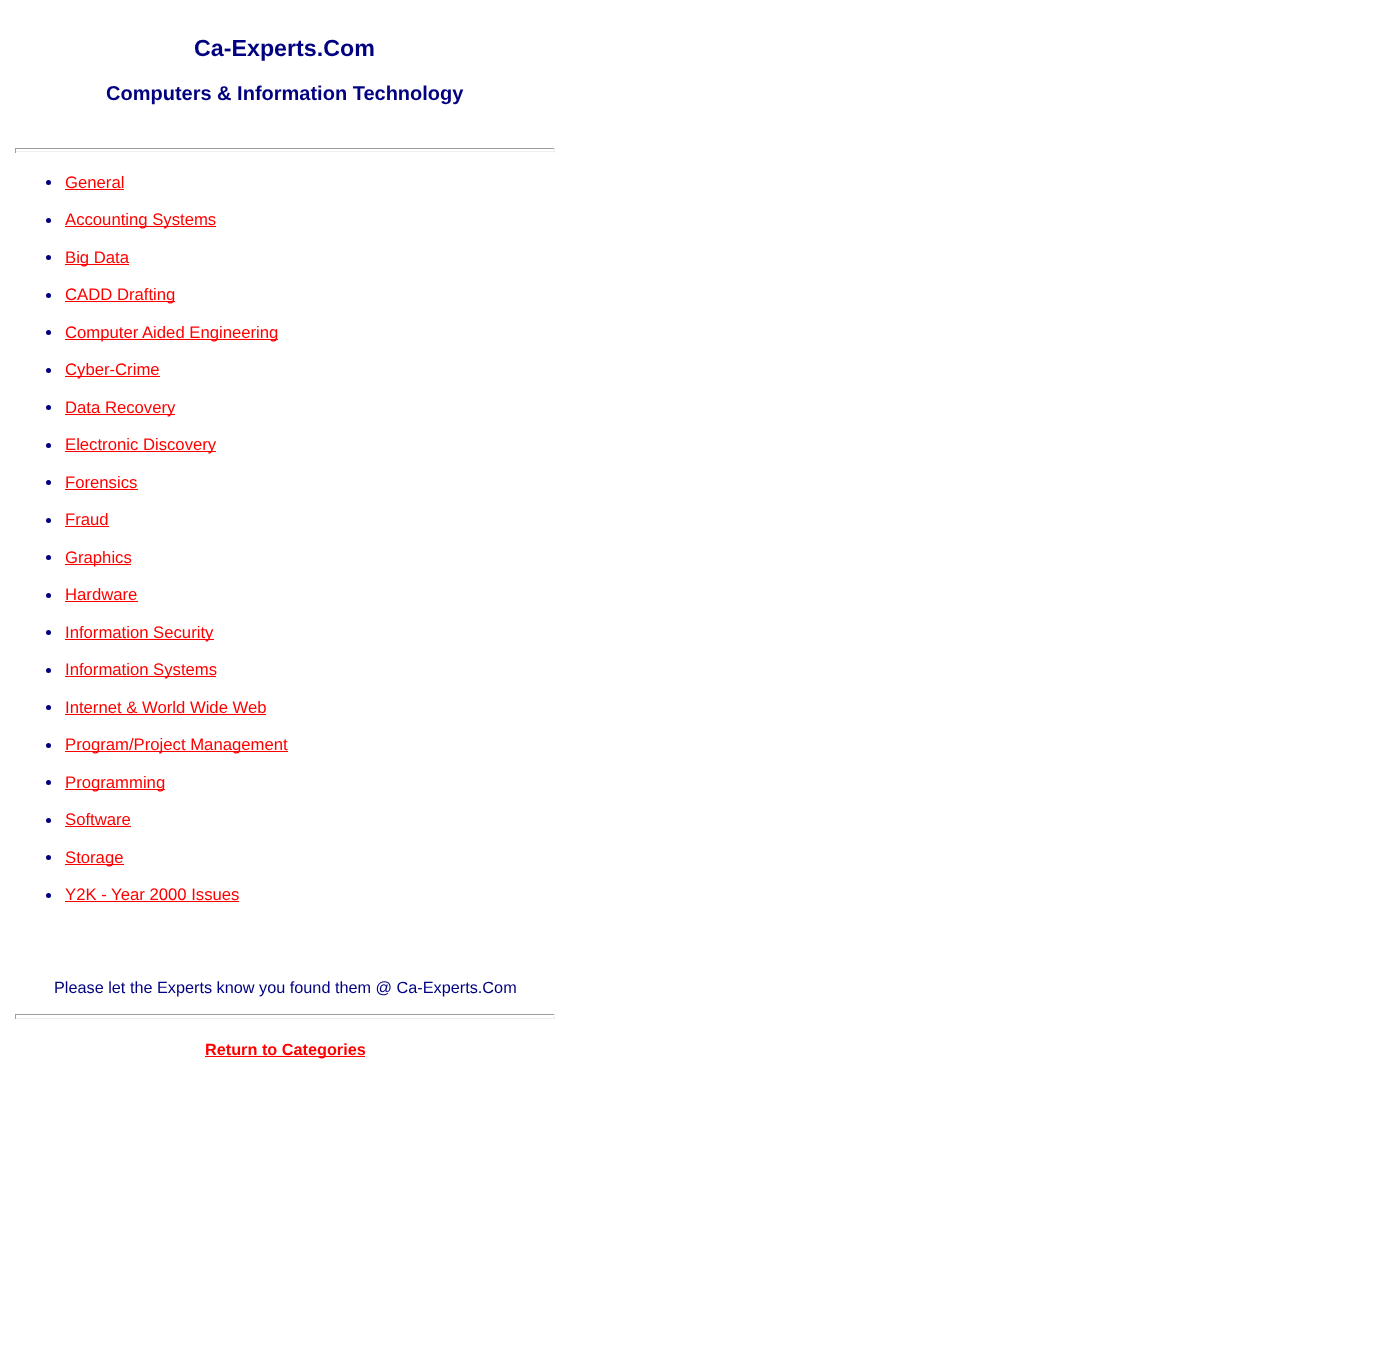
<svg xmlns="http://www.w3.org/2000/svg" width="1374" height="1368">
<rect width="100%" height="100%" fill="#fff"/>
<text x="194" y="56" style="font-family:Liberation Sans;font-size:23.25px;font-weight:bold;fill:#000080">Ca-Experts.Com</text>
<text x="106" y="100" style="font-family:Liberation Sans;font-size:20px;font-weight:bold;fill:#000080">Computers &amp; Information Technology</text>
<rect x="15" y="148" width="540" height="1" fill="#9f9f9f"/>
<rect x="554" y="148" width="1" height="5" fill="#eee"/>
<rect x="15" y="151" width="540" height="1" fill="#eee"/>
<rect x="15" y="148" width="1" height="5" fill="#9f9f9f"/>
<circle cx="48.5" cy="182.5" r="2.5" fill="#000080"/>
<text x="65" y="188" style="font-family:Liberation Sans;font-size:16.7px;fill:#f00">General</text>
<rect x="65" y="189" width="59" height="1" fill="#f00"/>
<circle cx="48.5" cy="220.5" r="2.5" fill="#000080"/>
<rect x="65" y="226" width="151" height="1" fill="#f00"/>
<text x="65" y="225" style="font-family:Liberation Sans;font-size:16.7px;fill:#f00">Accounting Systems</text>
<circle cx="48.5" cy="257.5" r="2.5" fill="#000080"/>
<rect x="65" y="264" width="64" height="1" fill="#f00"/>
<text x="65" y="263" style="font-family:Liberation Sans;font-size:16.7px;fill:#f00">Big Data</text>
<circle cx="48.5" cy="295.5" r="2.5" fill="#000080"/>
<rect x="65" y="301" width="110" height="1" fill="#f00"/>
<text x="65" y="300" style="font-family:Liberation Sans;font-size:16.7px;fill:#f00">CADD Drafting</text>
<circle cx="48.5" cy="332.5" r="2.5" fill="#000080"/>
<rect x="65" y="339" width="213" height="1" fill="#f00"/>
<text x="65" y="338" style="font-family:Liberation Sans;font-size:16.7px;fill:#f00">Computer Aided Engineering</text>
<circle cx="48.5" cy="370.5" r="2.5" fill="#000080"/>
<rect x="65" y="376" width="95" height="1" fill="#f00"/>
<text x="65" y="375" style="font-family:Liberation Sans;font-size:16.7px;fill:#f00">Cyber-Crime</text>
<circle cx="48.5" cy="407.5" r="2.5" fill="#000080"/>
<rect x="65" y="414" width="110" height="1" fill="#f00"/>
<text x="65" y="413" style="font-family:Liberation Sans;font-size:16.7px;fill:#f00">Data Recovery</text>
<circle cx="48.5" cy="445.5" r="2.5" fill="#000080"/>
<rect x="65" y="451" width="151" height="1" fill="#f00"/>
<text x="65" y="450" style="font-family:Liberation Sans;font-size:16.7px;fill:#f00">Electronic Discovery</text>
<circle cx="48.5" cy="482.5" r="2.5" fill="#000080"/>
<text x="65" y="488" style="font-family:Liberation Sans;font-size:16.7px;fill:#f00">Forensics</text>
<rect x="65" y="489" width="73" height="1" fill="#f00"/>
<circle cx="48.5" cy="520.5" r="2.5" fill="#000080"/>
<text x="65" y="525" style="font-family:Liberation Sans;font-size:16.7px;fill:#f00">Fraud</text>
<rect x="65" y="526" width="44" height="1" fill="#f00"/>
<circle cx="48.5" cy="557.5" r="2.5" fill="#000080"/>
<rect x="65" y="564" width="66" height="1" fill="#f00"/>
<text x="65" y="563" style="font-family:Liberation Sans;font-size:16.7px;fill:#f00">Graphics</text>
<circle cx="48.5" cy="595.5" r="2.5" fill="#000080"/>
<text x="65" y="600" style="font-family:Liberation Sans;font-size:16.7px;fill:#f00">Hardware</text>
<rect x="65" y="601" width="73" height="1" fill="#f00"/>
<circle cx="48.5" cy="632.5" r="2.5" fill="#000080"/>
<rect x="65" y="639" width="149" height="1" fill="#f00"/>
<text x="65" y="638" style="font-family:Liberation Sans;font-size:16.7px;fill:#f00">Information Security</text>
<circle cx="48.5" cy="670.5" r="2.5" fill="#000080"/>
<rect x="65" y="676" width="151" height="1" fill="#f00"/>
<text x="65" y="675" style="font-family:Liberation Sans;font-size:16.7px;fill:#f00">Information Systems</text>
<circle cx="48.5" cy="707.5" r="2.5" fill="#000080"/>
<text x="65" y="713" style="font-family:Liberation Sans;font-size:16.7px;fill:#f00">Internet &amp; World Wide Web</text>
<rect x="65" y="714" width="201" height="1" fill="#f00"/>
<circle cx="48.5" cy="745.5" r="2.5" fill="#000080"/>
<rect x="65" y="751" width="223" height="1" fill="#f00"/>
<text x="65" y="750" style="font-family:Liberation Sans;font-size:16.7px;fill:#f00">Program/Project Management</text>
<circle cx="48.5" cy="782.5" r="2.5" fill="#000080"/>
<rect x="65" y="789" width="100" height="1" fill="#f00"/>
<text x="65" y="788" style="font-family:Liberation Sans;font-size:16.7px;fill:#f00">Programming</text>
<circle cx="48.5" cy="820.5" r="2.5" fill="#000080"/>
<text x="65" y="825" style="font-family:Liberation Sans;font-size:16.7px;fill:#f00">Software</text>
<rect x="65" y="826" width="66" height="1" fill="#f00"/>
<circle cx="48.5" cy="857.5" r="2.5" fill="#000080"/>
<rect x="65" y="864" width="59" height="1" fill="#f00"/>
<text x="65" y="863" style="font-family:Liberation Sans;font-size:16.7px;fill:#f00">Storage</text>
<circle cx="48.5" cy="895.5" r="2.5" fill="#000080"/>
<text x="65" y="900" style="font-family:Liberation Sans;font-size:16.7px;fill:#f00">Y2K - Year 2000 Issues</text>
<rect x="65" y="901" width="174" height="1" fill="#f00"/>
<text x="54" y="993" style="font-family:Liberation Sans;font-size:16.25px;fill:#000080">Please let the Experts know you found them @ Ca-Experts.Com</text>
<rect x="15" y="1014" width="540" height="1" fill="#9f9f9f"/>
<rect x="554" y="1014" width="1" height="5" fill="#eee"/>
<rect x="15" y="1018" width="540" height="1" fill="#eee"/>
<rect x="15" y="1014" width="1" height="5" fill="#9f9f9f"/>
<rect x="205" y="1056" width="160" height="1" fill="#f00"/>
<text x="205" y="1055" style="font-family:Liberation Sans;font-size:16.25px;font-weight:bold;fill:#f00">Return to Categories</text>
</svg>
